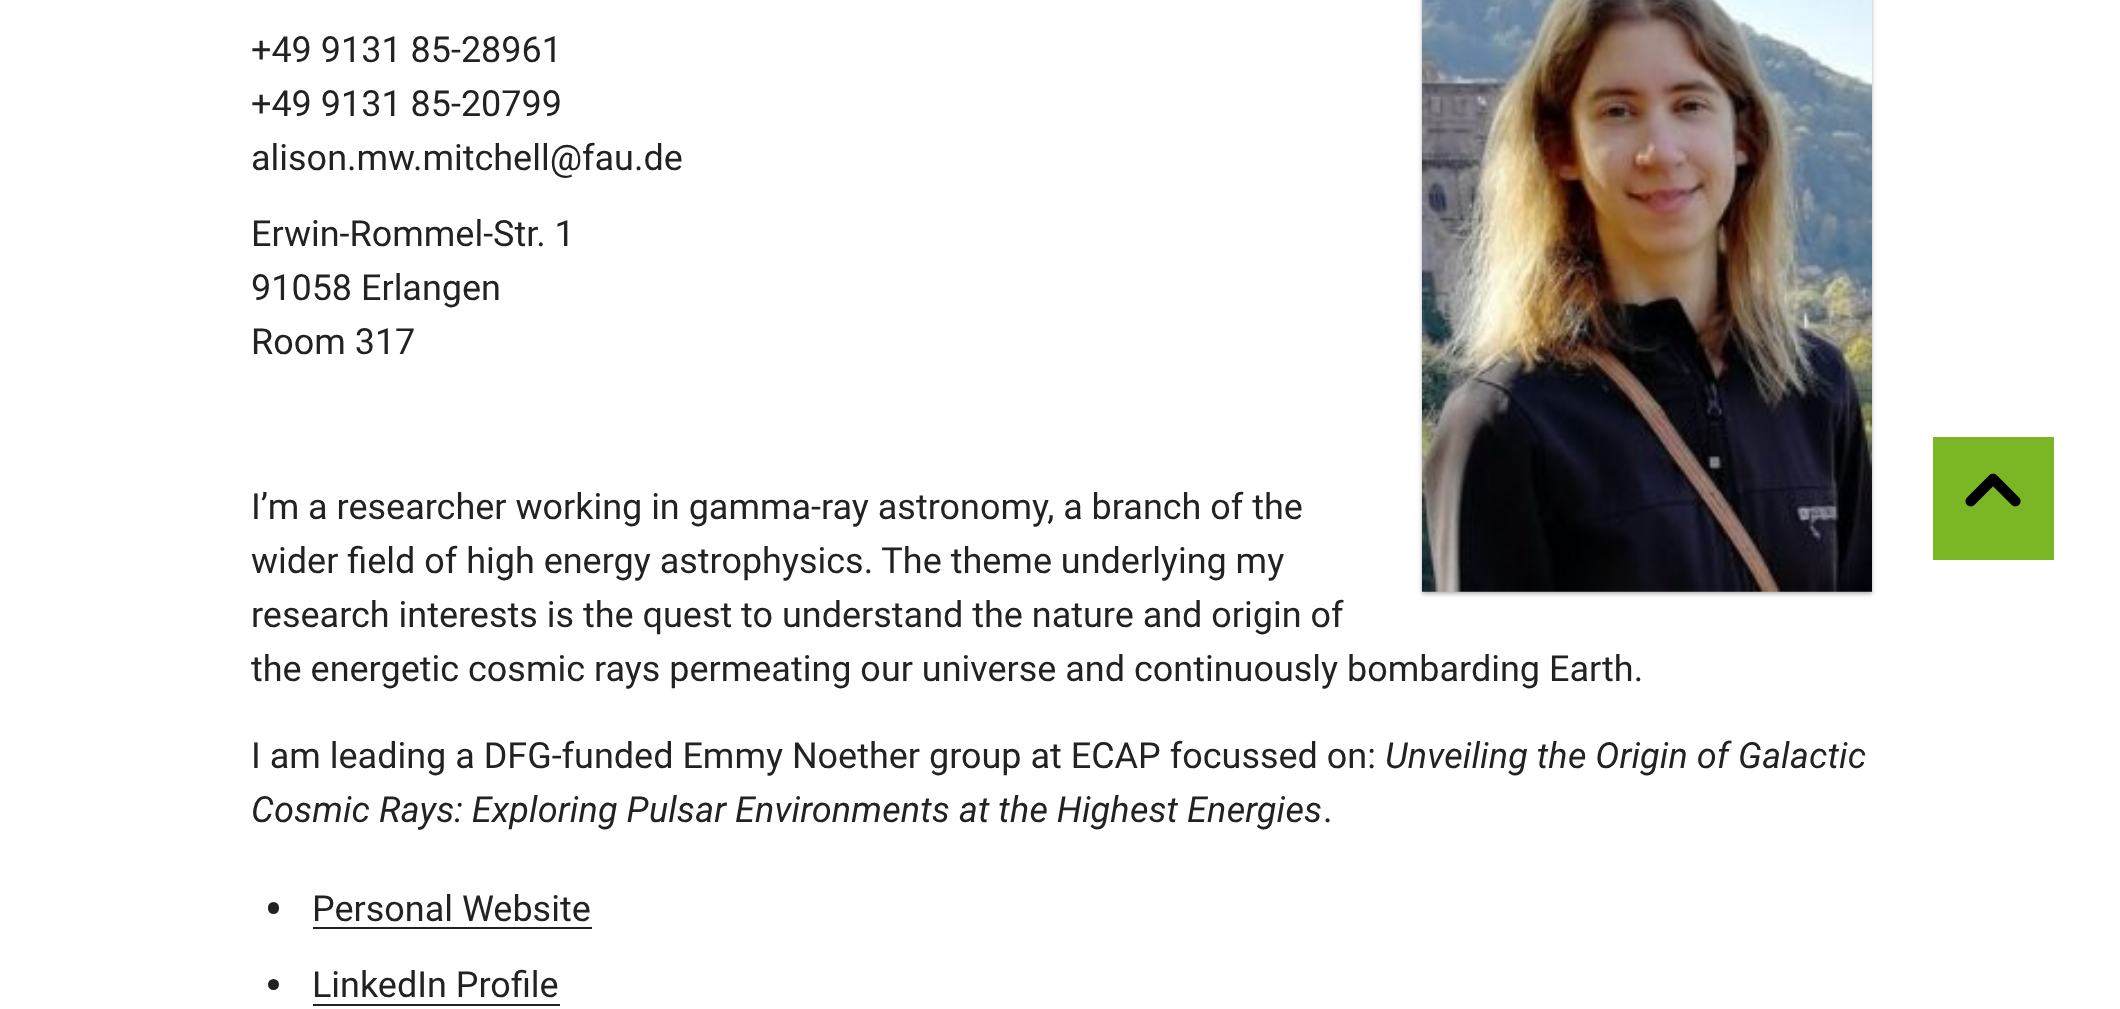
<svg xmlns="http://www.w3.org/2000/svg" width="2120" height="1009">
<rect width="100%" height="100%" fill="#fff"/>
<text x="251" y="62" style="font-family:Roboto;font-size:36px;fill:#222">+49 9131 85-28961</text>
<text x="251" y="116" style="font-family:Roboto;font-size:36px;fill:#222">+49 9131 85-20799</text>
<text x="251" y="170" style="font-family:Roboto;font-size:36px;fill:#222">alison.mw.mitchell@fau.de</text>
<text x="251" y="246" style="font-family:Roboto;font-size:36px;fill:#222">Erwin-Rommel-Str. 1</text>
<text x="251" y="300" style="font-family:Roboto;font-size:36px;fill:#222">91058 Erlangen</text>
<text x="251" y="354" style="font-family:Roboto;font-size:36px;fill:#222">Room 317</text>
<rect x="1422" y="-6" width="450" height="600" fill="#0000004d" filter="blur(2px)"/>
<image x="1422" y="0" width="450" height="592" href="media/1.png"/>
<text x="251" y="519" style="font-family:Roboto;font-size:36px;fill:#222">I’m a researcher working in gamma-ray astronomy, a branch of the</text>
<text x="251" y="573" style="font-family:Roboto;font-size:36px;fill:#222">wider field of high energy astrophysics. The theme underlying my</text>
<text x="251" y="627" style="font-family:Roboto;font-size:36px;fill:#222">research interests is the quest to understand the nature and origin of</text>
<text x="251" y="681" style="font-family:Roboto;font-size:36px;fill:#222">the energetic cosmic rays permeating our universe and continuously bombarding Earth.</text>
<text x="251" y="768" style="font-family:Roboto;font-size:36px;fill:#222">I am leading a DFG-funded Emmy Noether group at ECAP focussed on:</text>
<text x="1385" y="768" style="font-family:Roboto;font-size:36px;font-style:italic;fill:#222">Unveiling the Origin of Galactic</text>
<text x="251" y="822" style="font-family:Roboto;font-size:36px;font-style:italic;fill:#222">Cosmic Rays: Exploring Pulsar Environments at the Highest Energies</text>
<text x="1323" y="822" style="font-family:Roboto;font-size:36px;fill:#222">.</text>
<rect x="268" y="902" width="11" height="12" rx="5.5" fill="#222"/>
<text x="312" y="921" style="font-family:Roboto;font-size:36px;fill:#222">Personal Website</text>
<rect x="313" y="927" width="279" height="2" fill="#222"/>
<circle cx="273.5" cy="984.5" r="5.5" fill="#222"/>
<text x="312" y="997" style="font-family:Roboto;font-size:36px;fill:#222">LinkedIn Profile</text>
<rect x="313" y="1004" width="247" height="2" fill="#222"/>
<rect x="1933" y="437" width="121" height="123" fill="#7bb725"/>
<image x="1965" y="473" width="56" height="34" href="media/2.png"/>
</svg>
